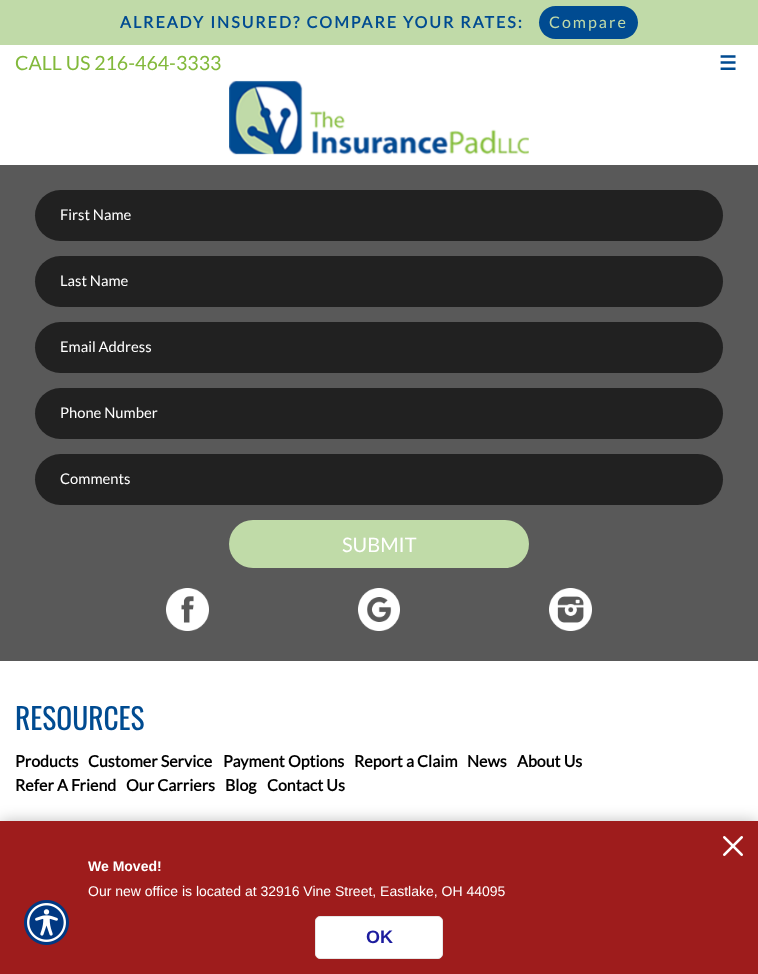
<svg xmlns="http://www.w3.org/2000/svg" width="758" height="974">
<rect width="100%" height="100%" fill="#fff"/>
<rect width="758" height="45" fill="#c0daa8"/>
<text x="120" y="28" style="font-family:Lato;font-size:16px;font-weight:bold;letter-spacing:2px;fill:#004b91">ALREADY INSURED? COMPARE YOUR RATES:</text>
<rect x="539" y="6" width="99" height="33" rx="16.5" fill="#004b91"/>
<text x="549" y="28" style="font-family:Lato;font-size:16px;letter-spacing:2px;fill:#c0daa8">Compare</text>
<text x="15" y="70" style="font-family:Lato;font-size:19.6px;fill:#82b93b">CALL US 216-464-3333</text>
<text x="719" y="70" style="font-family:DejaVu Sans;font-size:19.6px;font-weight:bold;fill:#004b91">☰</text>
<image x="229" y="80" width="300" height="75" href="media/1.png"/>
<rect y="165" width="758" height="496" fill="#595959"/>
<rect x="35" y="190" width="688" height="51" rx="25.5" fill="#212121"/>
<text x="60" y="220" style="font-family:Lato;font-size:14.75px;fill:#fff">First Name</text>
<rect x="35" y="256" width="688" height="51" rx="25.5" fill="#212121"/>
<text x="60" y="286" style="font-family:Lato;font-size:14.75px;fill:#fff">Last Name</text>
<rect x="35" y="322" width="688" height="51" rx="25.5" fill="#212121"/>
<text x="60" y="352" style="font-family:Lato;font-size:14.75px;fill:#fff">Email Address</text>
<rect x="35" y="388" width="688" height="51" rx="25.5" fill="#212121"/>
<text x="60" y="418" style="font-family:Lato;font-size:14.75px;fill:#fff">Phone Number</text>
<rect x="35" y="454" width="688" height="51" rx="25.5" fill="#212121"/>
<text x="60" y="484" style="font-family:Lato;font-size:14.75px;fill:#fff">Comments</text>
<rect x="229" y="520" width="300" height="48" rx="24" fill="#c0dba8"/>
<text x="342" y="552" style="font-family:Lato;font-size:20px;fill:#fff">SUBMIT</text>
<image x="166" y="588" width="43" height="43" href="media/2.png"/>
<image x="358" y="588" width="42" height="43" href="media/3.png"/>
<image x="549" y="588" width="43" height="43" href="media/4.png"/>
<text x="15" y="730" style="font-family:Oswald;font-size:29.5px;fill:#004b91">RESOURCES</text>
<text x="15" y="767" style="font-family:Lato;font-size:16px;font-weight:bold;fill:#000">Products</text>
<text x="88" y="767" style="font-family:Lato;font-size:16px;font-weight:bold;fill:#000">Customer Service</text>
<text x="223" y="767" style="font-family:Lato;font-size:16px;font-weight:bold;fill:#000">Payment Options</text>
<text x="354" y="767" style="font-family:Lato;font-size:16px;font-weight:bold;fill:#000">Report a Claim</text>
<text x="467" y="767" style="font-family:Lato;font-size:16px;font-weight:bold;fill:#000">News</text>
<text x="517" y="767" style="font-family:Lato;font-size:16px;font-weight:bold;fill:#000">About Us</text>
<text x="15" y="791" style="font-family:Lato;font-size:16px;font-weight:bold;fill:#000">Refer A Friend</text>
<text x="126" y="791" style="font-family:Lato;font-size:16px;font-weight:bold;fill:#000">Our Carriers</text>
<text x="225" y="791" style="font-family:Lato;font-size:16px;font-weight:bold;fill:#000">Blog</text>
<text x="267" y="791" style="font-family:Lato;font-size:16px;font-weight:bold;fill:#000">Contact Us</text>
<rect y="821" width="758" height="153" fill="#00000040" filter="blur(7.5px)"/>
<rect y="821" width="758" height="153" fill="#9e1c1c"/>
<image x="24" y="900" width="45" height="45" href="media/5.png"/>
<image x="723" y="836" width="20" height="20" href="media/6.png"/>
<text x="88" y="871" style="font-family:Liberation Sans;font-size:14px;font-weight:bold;fill:#fff">We Moved!</text>
<text x="88" y="896" style="font-family:Liberation Sans;font-size:14px;fill:#fff">Our new office is located at 32916 Vine Street, Eastlake, OH 44095</text>
<rect x="315.5" y="916.5" width="127" height="42" rx="4.5" fill="#fff" stroke="#e6e6e6"/>
<text x="366" y="943" style="font-family:Liberation Sans;font-size:18px;font-weight:bold;fill:#1c1c9e">OK</text>
</svg>
